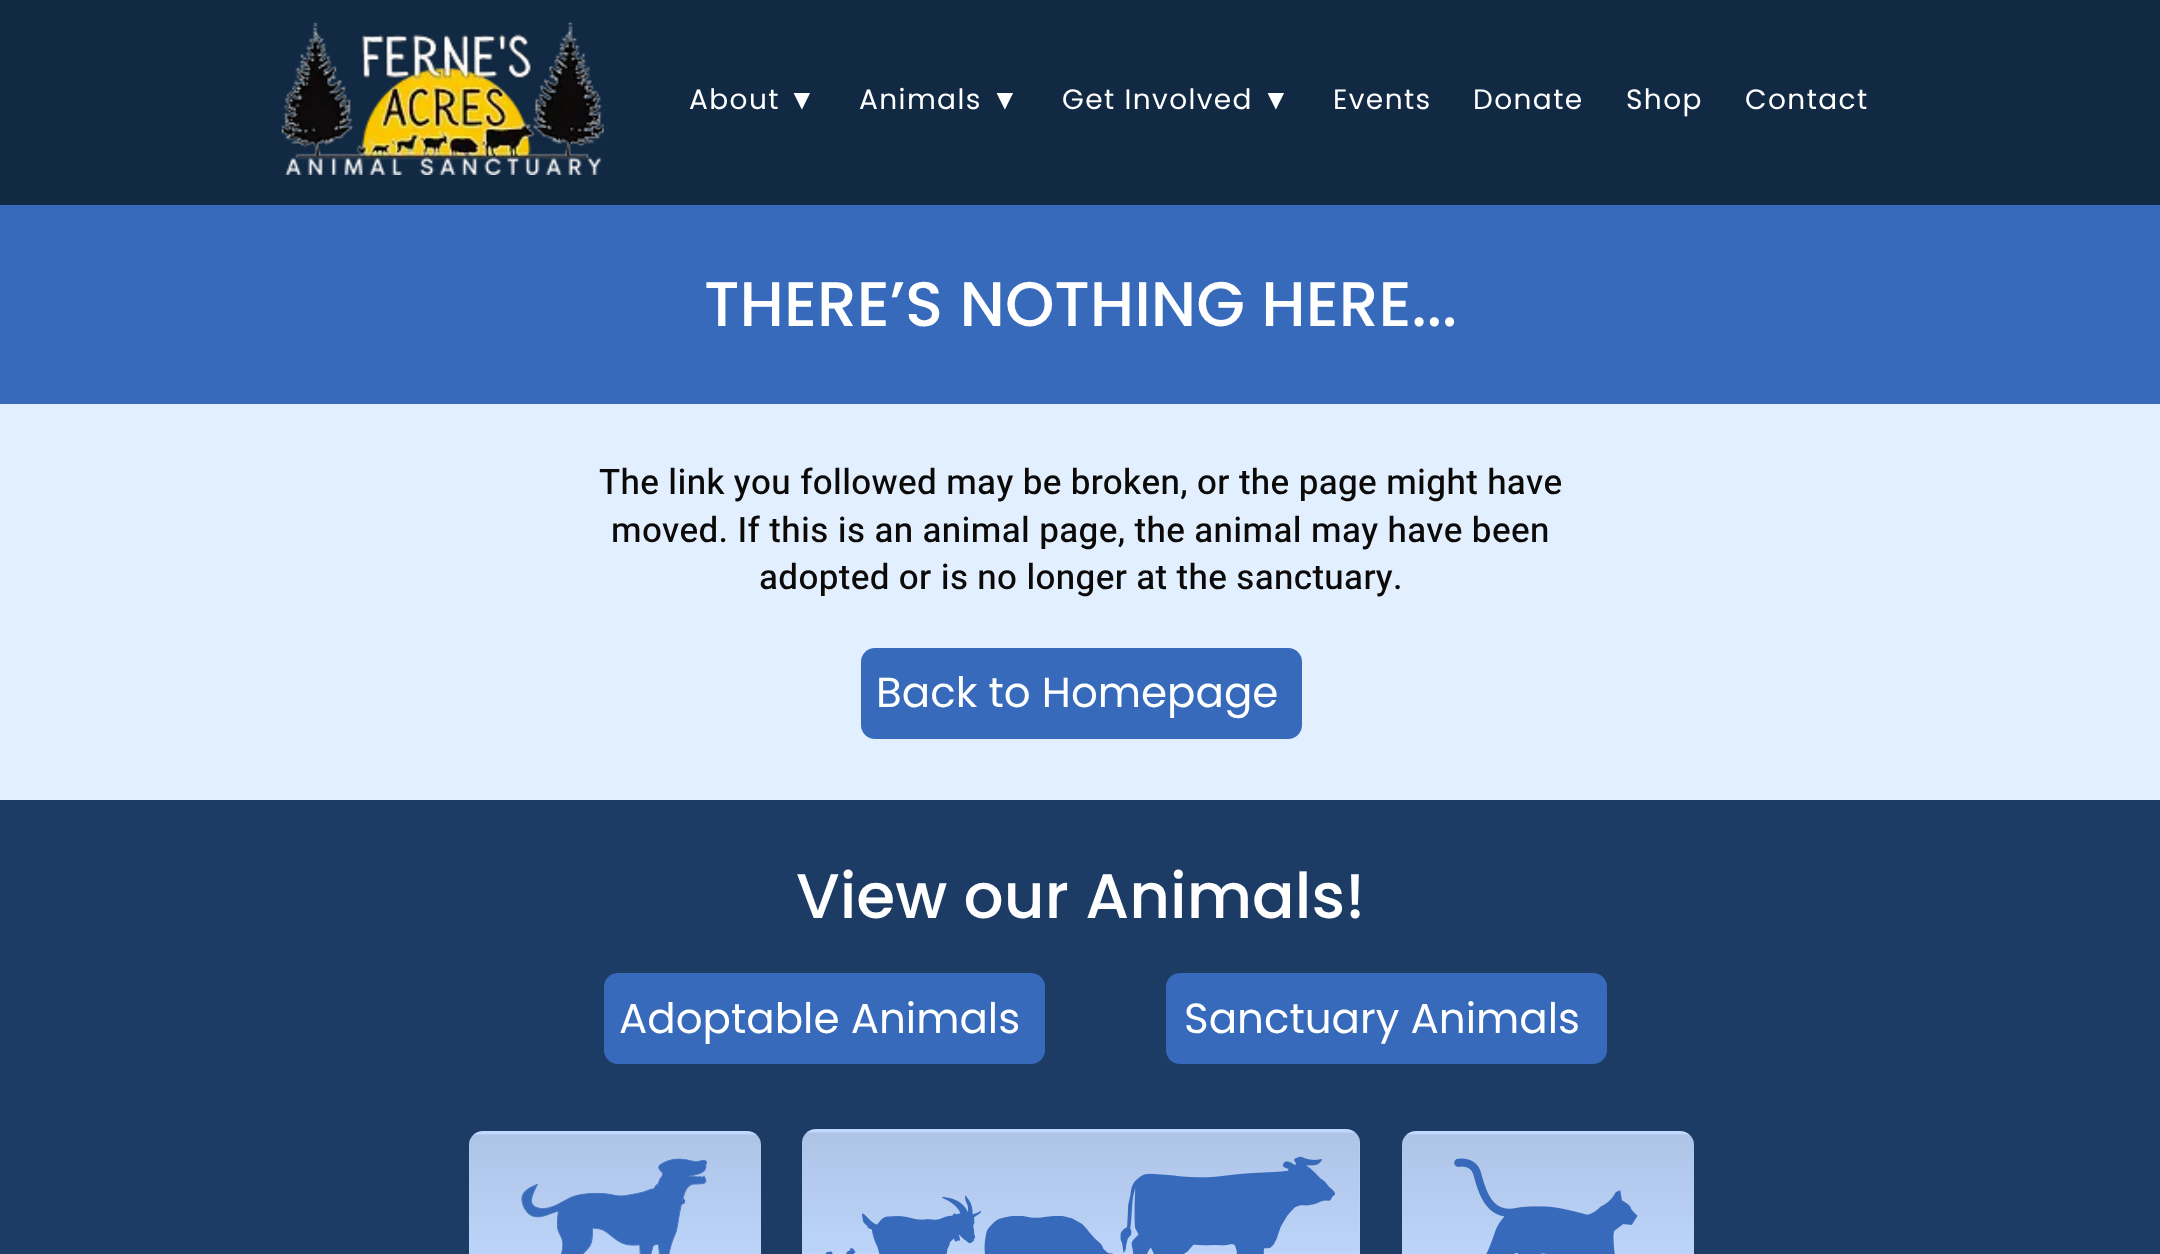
<svg xmlns="http://www.w3.org/2000/svg" width="2160" height="1254">
<rect width="100%" height="100%" fill="#e2efff"/>
<rect width="2160" height="205" fill="#112943"/>
<image x="281" y="22" width="323" height="153" href="media/1.png"/>
<text x="689" y="109" style="font-family:Poppins;font-size:28px;letter-spacing:1.4px;fill:#fff">About</text>
<text x="788" y="109" style="font-family:Liberation Sans;font-size:28px;letter-spacing:1.4px;fill:#fff">▼</text>
<text x="859" y="109" style="font-family:Poppins;font-size:28px;letter-spacing:1.4px;fill:#fff">Animals</text>
<text x="991" y="109" style="font-family:Liberation Sans;font-size:28px;letter-spacing:1.4px;fill:#fff">▼</text>
<text x="1062" y="109" style="font-family:Poppins;font-size:28px;letter-spacing:1.4px;fill:#fff">Get Involved</text>
<text x="1262" y="109" style="font-family:Liberation Sans;font-size:28px;letter-spacing:1.4px;fill:#fff">▼</text>
<text x="1333" y="109" style="font-family:Poppins;font-size:28px;letter-spacing:1.4px;fill:#fff">Events</text>
<text x="1473" y="109" style="font-family:Poppins;font-size:28px;letter-spacing:1.4px;fill:#fff">Donate</text>
<text x="1626" y="109" style="font-family:Poppins;font-size:28px;letter-spacing:1.4px;fill:#fff">Shop</text>
<text x="1745" y="109" style="font-family:Poppins;font-size:28px;letter-spacing:1.4px;fill:#fff">Contact</text>
<rect y="205" width="2160" height="199" fill="#376aba"/>
<text x="704" y="326" style="font-family:Poppins;font-size:63px;font-weight:500;fill:#fff">THERE’S NOTHING HERE...</text>
<text x="599" y="494" style="font-family:Heebo;font-size:35px;font-weight:500;letter-spacing:0.35px;fill:#0b0a09">The link you followed may be broken, or the page might have</text>
<text x="611" y="542" style="font-family:Heebo;font-size:35px;font-weight:500;letter-spacing:0.35px;fill:#0b0a09">moved. If this is an animal page, the animal may have been</text>
<text x="759" y="589" style="font-family:Heebo;font-size:35px;font-weight:500;letter-spacing:0.35px;fill:#0b0a09">adopted or is no longer at the sanctuary.</text>
<rect x="861" y="648" width="441" height="91" rx="14" fill="#376aba"/>
<text x="876" y="707" style="font-family:Poppins;font-size:42px;fill:#fff">Back to Homepage</text>
<rect y="800" width="2160" height="454" fill="#1c3c65"/>
<text x="796" y="918" style="font-family:Poppins;font-size:63px;font-weight:500;fill:#fff">View our Animals!</text>
<rect x="604" y="973" width="441" height="91" rx="14" fill="#376aba"/>
<text x="619" y="1033" style="font-family:Poppins;font-size:42px;fill:#fff">Adoptable Animals</text>
<rect x="1166" y="973" width="441" height="91" rx="14" fill="#376aba"/>
<text x="1184" y="1033" style="font-family:Poppins;font-size:42px;fill:#fff">Sanctuary Animals</text>
<rect x="469" y="1131" width="292" height="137" rx="14" fill="#c1d9ff"/>
<image x="469" y="1134" width="292" height="120" href="media/2.png"/>
<image x="521" y="1158" width="186" height="96" href="media/3.png"/>
<rect x="802" y="1129" width="558" height="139" rx="14" fill="#c1d9ff"/>
<image x="802" y="1132" width="558" height="121" href="media/4.png"/>
<image x="825" y="1156" width="510" height="98" href="media/5.png"/>
<rect x="1402" y="1131" width="292" height="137" rx="14" fill="#c1d9ff"/>
<image x="1402" y="1134" width="292" height="120" href="media/6.png"/>
<image x="1454" y="1158" width="184" height="96" href="media/7.png"/>
</svg>
